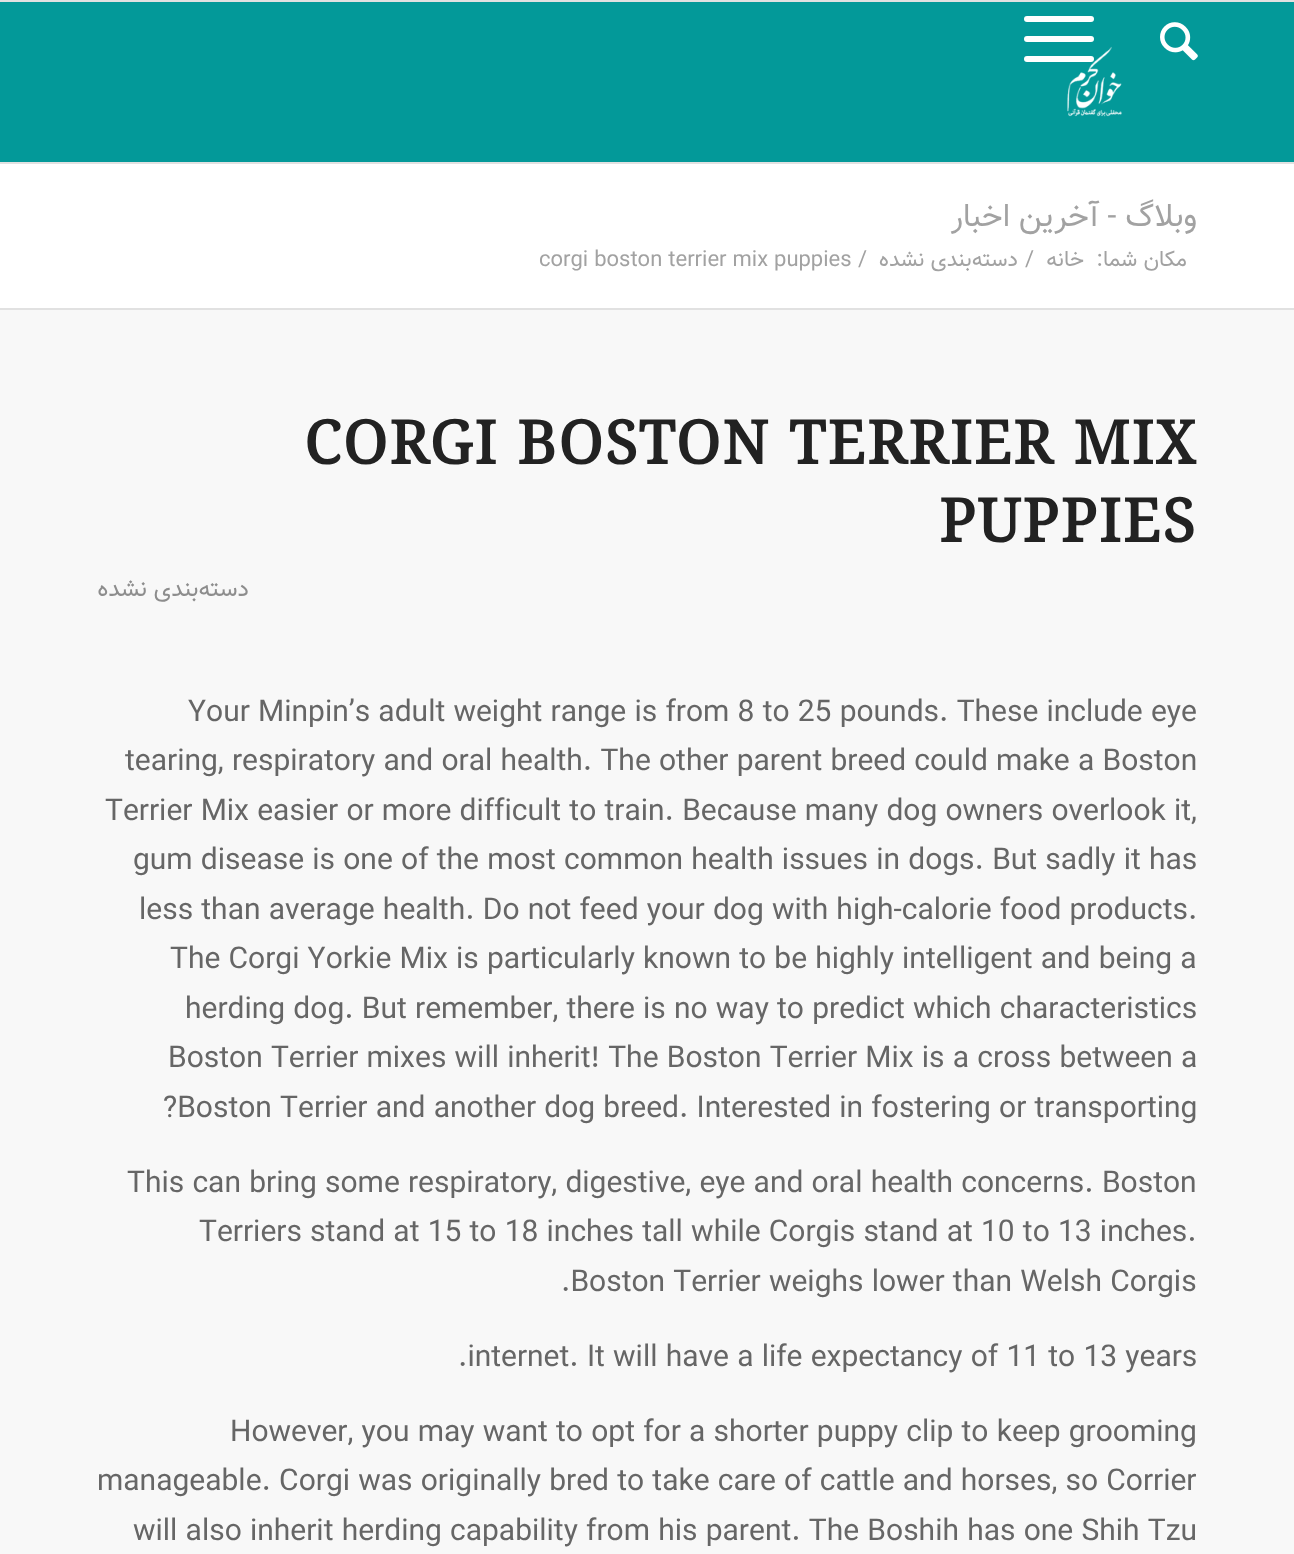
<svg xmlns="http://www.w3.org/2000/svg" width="1294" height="1554">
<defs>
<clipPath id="clip1"><rect x="98" y="410" width="1098" height="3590"/></clipPath>
</defs>
<rect width="100%" height="100%" fill="#fff"/>
<rect width="1294" height="2" fill="#e1e1e1"/>
<rect y="162" width="1294" height="2" fill="#e1e1e1"/>
<rect y="2" width="1294" height="160" fill="#039999"/>
<rect x="1024" y="36" width="70" height="6" rx="3" fill="#fff"/>
<rect x="1024" y="16" width="70" height="6" rx="3" fill="#fff"/>
<image x="1067" y="46" width="55" height="71" href="media/2.png"/>
<rect x="1024" y="56" width="70" height="6" rx="3" fill="#fff"/>
<image x="1160" y="22" width="38" height="39" href="media/1.png"/>
<text x="1197" y="226" style="font-family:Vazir;font-size:32px;direction:rtl;fill:#a2a2a2">وبلاگ - آخرین اخبار</text>
<text x="539" y="266" style="font-family:Vazir;font-size:22px;fill:#a2a2a2">corgi boston terrier mix puppies</text>
<text x="858" y="266" style="font-family:Vazir;font-size:22px;fill:#a2a2a2">/</text>
<text x="1018" y="266" style="font-family:Vazir;font-size:22px;direction:rtl;fill:#a2a2a2">دسته‌بندی نشده</text>
<text x="1025" y="266" style="font-family:Vazir;font-size:22px;fill:#a2a2a2">/</text>
<text x="1084" y="266" style="font-family:Vazir;font-size:22px;direction:rtl;fill:#a2a2a2">خانه</text>
<text x="1187" y="266" style="font-family:Vazir;font-size:22px;direction:rtl;fill:#a2a2a2">مکان شما:</text>
<rect y="310" width="1294" height="1244" fill="#f8f8f8"/>
<rect y="308" width="1294" height="2" fill="#e1e1e1"/>
<text x="304" y="464" style="font-family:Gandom;font-size:60px;font-weight:bold;letter-spacing:2px;fill:#222">CORGI BOSTON TERRIER MIX</text>
<text x="939" y="542" style="font-family:Gandom;font-size:60px;font-weight:bold;letter-spacing:2px;fill:#222">PUPPIES</text>
<text x="249" y="596" style="font-family:Vazir;font-size:24px;direction:rtl;fill:#8d8d8d">دسته‌بندی نشده</text>
<text x="188" y="721" style="font-family:Vazir;font-size:30px;fill:#666">Your Minpin’s adult weight range is from 8 to 25 pounds. These include eye</text>
<text x="125" y="770" style="font-family:Vazir;font-size:30px;fill:#666">tearing, respiratory and oral health. The other parent breed could make a Boston</text>
<text x="105" y="820" style="font-family:Vazir;font-size:30px;fill:#666">Terrier Mix easier or more difficult to train. Because many dog owners overlook it,</text>
<text x="133" y="869" style="font-family:Vazir;font-size:30px;fill:#666">gum disease is one of the most common health issues in dogs. But sadly it has</text>
<text x="139" y="919" style="font-family:Vazir;font-size:30px;fill:#666">less than average health. Do not feed your dog with high-calorie food products.</text>
<text x="170" y="968" style="font-family:Vazir;font-size:30px;fill:#666">The Corgi Yorkie Mix is particularly known to be highly intelligent and being a</text>
<text x="185" y="1018" style="font-family:Vazir;font-size:30px;fill:#666">herding dog. But remember, there is no way to predict which characteristics</text>
<text x="168" y="1067" style="font-family:Vazir;font-size:30px;fill:#666">Boston Terrier mixes will inherit! The Boston Terrier Mix is a cross between a</text>
<text x="163" y="1117" style="font-family:Vazir;font-size:30px;fill:#666">?Boston Terrier and another dog breed. Interested in fostering or transporting</text>
<text x="127" y="1192" style="font-family:Vazir;font-size:30px;fill:#666">This can bring some respiratory, digestive, eye and oral health concerns. Boston</text>
<text x="199" y="1241" style="font-family:Vazir;font-size:30px;fill:#666">Terriers stand at 15 to 18 inches tall while Corgis stand at 10 to 13 inches.</text>
<text x="561" y="1291" style="font-family:Vazir;font-size:30px;fill:#666">.Boston Terrier weighs lower than Welsh Corgis</text>
<text x="458" y="1366" style="font-family:Vazir;font-size:30px;fill:#666">.internet. It will have a life expectancy of 11 to 13 years</text>
<text x="230" y="1441" style="font-family:Vazir;font-size:30px;fill:#666">However, you may want to opt for a shorter puppy clip to keep grooming</text>
<g clip-path="url(#clip1)">
<text x="97" y="1490" style="font-family:Vazir;font-size:30px;fill:#666">manageable. Corgi was originally bred to take care of cattle and horses, so Corrier</text>
</g>
<text x="133" y="1540" style="font-family:Vazir;font-size:30px;fill:#666">will also inherit herding capability from his parent. The Boshih has one Shih Tzu</text>
</svg>
